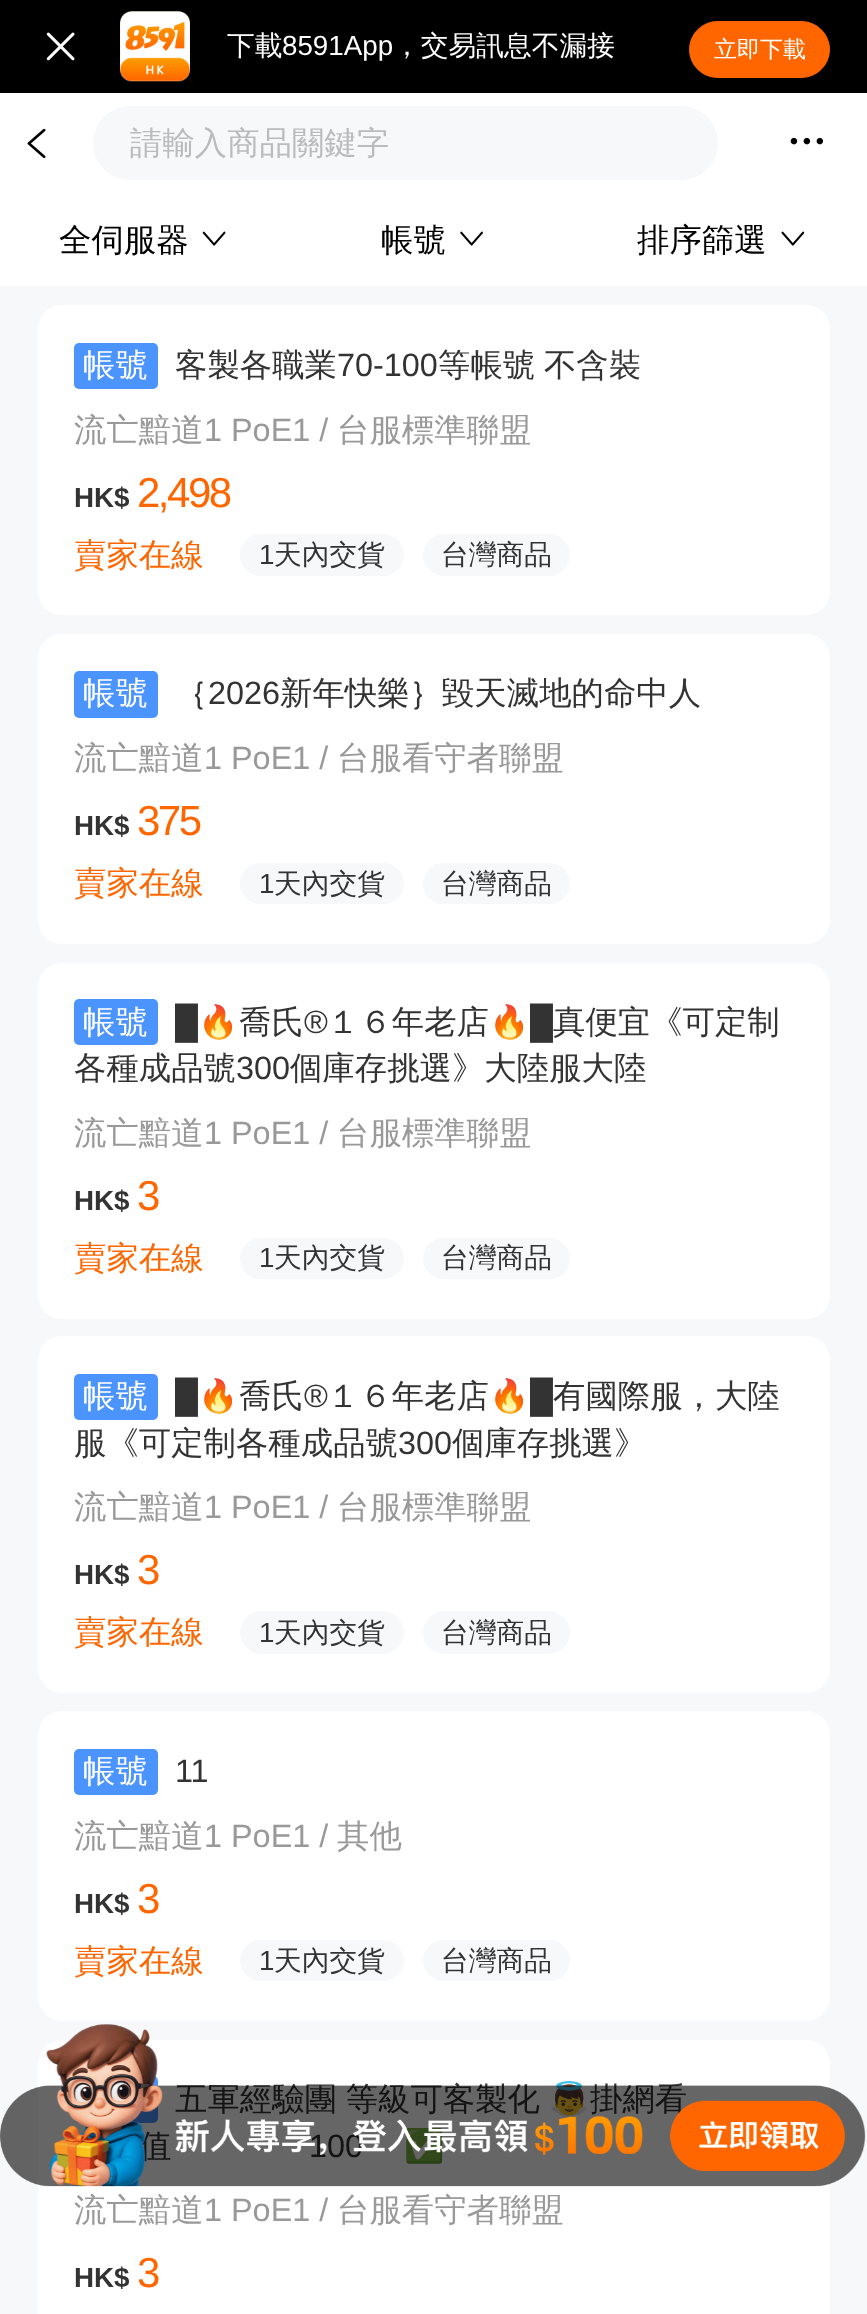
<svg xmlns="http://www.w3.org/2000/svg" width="867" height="2314">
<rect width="100%" height="100%" fill="#f7f8fa"/>
<rect width="867" height="93" fill="#000"/>
<image x="46" y="32" width="29" height="29" href="media/1.png"/>
<image x="120" y="11" width="70" height="71" href="media/2.png"/>
<text x="227" y="55" style="font-family:WenQuanYi Zen Hei;font-size:27.75px;font-weight:500;fill:#fff">下載</text>
<text x="282" y="55" style="font-family:Liberation Sans;font-size:27.75px;fill:#fff">8591App</text>
<text x="393" y="55" style="font-family:WenQuanYi Zen Hei;font-size:27.75px;font-weight:500;fill:#fff">，交易訊息不漏接</text>
<rect x="689.5" y="21.5" width="140" height="56" rx="28" fill="#f60" stroke="#f60"/>
<text x="714" y="57" style="font-family:WenQuanYi Zen Hei;font-size:23px;font-weight:500;fill:#fff">立即下載</text>
<rect y="93" width="867" height="193" fill="#fff"/>
<image x="27" y="128" width="19" height="30" href="media/3.png"/>
<rect x="93" y="106" width="625" height="74" rx="37" fill="#f7f8fa"/>
<text x="130" y="154" style="font-family:WenQuanYi Zen Hei;font-size:32.4px;font-weight:500;fill:#bbb">請輸入商品關鍵字</text>
<image x="790" y="137" width="33" height="8" href="media/4.png"/>
<text x="59" y="251" style="font-family:WenQuanYi Zen Hei;font-size:32.4px;font-weight:500;fill:#000">全伺服器</text>
<image x="202" y="231" width="24" height="15" href="media/5.png"/>
<text x="381" y="251" style="font-family:WenQuanYi Zen Hei;font-size:32.4px;font-weight:500;fill:#000">帳號</text>
<image x="460" y="231" width="23" height="15" href="media/6.png"/>
<text x="637" y="251" style="font-family:WenQuanYi Zen Hei;font-size:32.4px;font-weight:500;fill:#000">排序篩選</text>
<image x="781" y="231" width="24" height="15" href="media/7.png"/>
<rect x="38" y="305" width="792" height="310" rx="24" fill="#fff"/>
<rect x="74" y="343" width="84" height="46" rx="5" fill="#4c94fd"/>
<text x="83" y="376" style="font-family:WenQuanYi Zen Hei;font-size:32.4px;font-weight:500;fill:#fff">帳號</text>
<text x="175" y="376" style="font-family:WenQuanYi Zen Hei;font-size:32.4px;font-weight:500;fill:#333">客製各職業</text>
<text x="337" y="376" style="font-family:Liberation Sans;font-size:32.4px;fill:#333">70-100</text>
<text x="438" y="376" word-spacing="-1" style="font-family:WenQuanYi Zen Hei;font-size:32.4px;font-weight:500;fill:#333">等帳號 不含裝</text>
<text x="74" y="441" style="font-family:WenQuanYi Zen Hei;font-size:32.4px;font-weight:500;fill:#999">流亡黯道</text>
<text x="204" y="441" style="font-family:Liberation Sans;font-size:32.4px;fill:#999">1 PoE1 /</text>
<text x="337" y="441" style="font-family:WenQuanYi Zen Hei;font-size:32.4px;font-weight:500;fill:#999">台服標準聯盟</text>
<text x="74" y="507" style="font-family:Liberation Sans;font-size:27.75px;font-weight:bold;fill:#333">HK$</text>
<text x="137" y="507" style="font-family:Liberation Sans;font-size:42px;letter-spacing:-2.5px;fill:#f60">2,498</text>
<text x="74" y="566" style="font-family:WenQuanYi Zen Hei;font-size:32.4px;font-weight:500;fill:#f60">賣家在線</text>
<rect x="240" y="534" width="164" height="42" rx="21" fill="#f7f8fa"/>
<text x="259" y="564" style="font-family:Liberation Sans;font-size:27.75px;fill:#333">1</text>
<text x="274" y="564" style="font-family:WenQuanYi Zen Hei;font-size:27.75px;font-weight:500;fill:#333">天內交貨</text>
<rect x="423" y="534" width="147" height="42" rx="21" fill="#f7f8fa"/>
<text x="441" y="564" style="font-family:WenQuanYi Zen Hei;font-size:27.75px;font-weight:500;fill:#333">台灣商品</text>
<rect x="38" y="634" width="792" height="310" rx="24" fill="#fff"/>
<rect x="74" y="671" width="84" height="47" rx="5" fill="#4c94fd"/>
<text x="83" y="704" style="font-family:WenQuanYi Zen Hei;font-size:32.4px;font-weight:500;fill:#fff">帳號</text>
<text x="175" y="704" style="font-family:WenQuanYi Zen Hei;font-size:32.4px;font-weight:500;fill:#333">｛</text>
<text x="208" y="704" style="font-family:Liberation Sans;font-size:32.4px;fill:#333">2026</text>
<text x="280" y="704" style="font-family:WenQuanYi Zen Hei;font-size:32.4px;font-weight:500;fill:#333">新年快樂｝毀天滅地的命中人</text>
<text x="74" y="769" style="font-family:WenQuanYi Zen Hei;font-size:32.4px;font-weight:500;fill:#999">流亡黯道</text>
<text x="204" y="769" style="font-family:Liberation Sans;font-size:32.4px;fill:#999">1 PoE1 /</text>
<text x="337" y="769" style="font-family:WenQuanYi Zen Hei;font-size:32.4px;font-weight:500;fill:#999">台服看守者聯盟</text>
<text x="74" y="835" style="font-family:Liberation Sans;font-size:27.75px;font-weight:bold;fill:#333">HK$</text>
<text x="137" y="835" style="font-family:Liberation Sans;font-size:42px;letter-spacing:-2.5px;fill:#f60">375</text>
<text x="74" y="894" style="font-family:WenQuanYi Zen Hei;font-size:32.4px;font-weight:500;fill:#f60">賣家在線</text>
<rect x="240" y="863" width="164" height="41" rx="20.5" fill="#f7f8fa"/>
<text x="259" y="893" style="font-family:Liberation Sans;font-size:27.75px;fill:#333">1</text>
<text x="274" y="893" style="font-family:WenQuanYi Zen Hei;font-size:27.75px;font-weight:500;fill:#333">天內交貨</text>
<rect x="423" y="863" width="147" height="41" rx="20.5" fill="#f7f8fa"/>
<text x="441" y="893" style="font-family:WenQuanYi Zen Hei;font-size:27.75px;font-weight:500;fill:#333">台灣商品</text>
<rect x="38" y="963" width="792" height="356" rx="24" fill="#fff"/>
<rect x="74" y="999" width="84" height="46" rx="5" fill="#4c94fd"/>
<text x="83" y="1033" style="font-family:WenQuanYi Zen Hei;font-size:32.4px;font-weight:500;fill:#fff">帳號</text>
<text x="175" y="1033" style="font-family:Liberation Sans;font-size:32.4px;fill:#333">█</text>
<text x="198" y="1033" style="font-family:Noto Color Emoji;font-size:32.4px;fill:#333">🔥</text>
<text x="239" y="1033" style="font-family:WenQuanYi Zen Hei;font-size:32.4px;font-weight:500;fill:#333">喬氏</text>
<text x="304" y="1033" style="font-family:Liberation Sans;font-size:32.4px;fill:#333">®</text>
<text x="327" y="1033" style="font-family:WenQuanYi Zen Hei;font-size:32.4px;font-weight:500;fill:#333">１６年老店</text>
<text x="489" y="1033" style="font-family:Noto Color Emoji;font-size:32.4px;fill:#333">🔥</text>
<text x="530" y="1033" style="font-family:Liberation Sans;font-size:32.4px;fill:#333">█</text>
<text x="553" y="1033" style="font-family:WenQuanYi Zen Hei;font-size:32.4px;font-weight:500;fill:#333">真便宜《可定制</text>
<text x="74" y="1079" style="font-family:WenQuanYi Zen Hei;font-size:32.4px;font-weight:500;fill:#333">各種成品號</text>
<text x="236" y="1079" style="font-family:Liberation Sans;font-size:32.4px;fill:#333">300</text>
<text x="290" y="1079" style="font-family:WenQuanYi Zen Hei;font-size:32.4px;font-weight:500;fill:#333">個庫存挑選》大陸服大陸</text>
<text x="74" y="1144" style="font-family:WenQuanYi Zen Hei;font-size:32.4px;font-weight:500;fill:#999">流亡黯道</text>
<text x="204" y="1144" style="font-family:Liberation Sans;font-size:32.4px;fill:#999">1 PoE1 /</text>
<text x="337" y="1144" style="font-family:WenQuanYi Zen Hei;font-size:32.4px;font-weight:500;fill:#999">台服標準聯盟</text>
<text x="74" y="1210" style="font-family:Liberation Sans;font-size:27.75px;font-weight:bold;fill:#333">HK$</text>
<text x="137" y="1210" style="font-family:Liberation Sans;font-size:42px;letter-spacing:-2.5px;fill:#f60">3</text>
<text x="74" y="1269" style="font-family:WenQuanYi Zen Hei;font-size:32.4px;font-weight:500;fill:#f60">賣家在線</text>
<rect x="240" y="1238" width="164" height="41" rx="20.5" fill="#f7f8fa"/>
<text x="259" y="1267" style="font-family:Liberation Sans;font-size:27.75px;fill:#333">1</text>
<text x="274" y="1267" style="font-family:WenQuanYi Zen Hei;font-size:27.75px;font-weight:500;fill:#333">天內交貨</text>
<rect x="423" y="1238" width="147" height="41" rx="20.5" fill="#f7f8fa"/>
<text x="441" y="1267" style="font-family:WenQuanYi Zen Hei;font-size:27.75px;font-weight:500;fill:#333">台灣商品</text>
<rect x="38" y="1336" width="792" height="357" rx="24" fill="#fff"/>
<rect x="74" y="1374" width="84" height="46" rx="5" fill="#4c94fd"/>
<text x="83" y="1407" style="font-family:WenQuanYi Zen Hei;font-size:32.4px;font-weight:500;fill:#fff">帳號</text>
<text x="175" y="1407" style="font-family:Liberation Sans;font-size:32.4px;fill:#333">█</text>
<text x="198" y="1407" style="font-family:Noto Color Emoji;font-size:32.4px;fill:#333">🔥</text>
<text x="239" y="1407" style="font-family:WenQuanYi Zen Hei;font-size:32.4px;font-weight:500;fill:#333">喬氏</text>
<text x="304" y="1407" style="font-family:Liberation Sans;font-size:32.4px;fill:#333">®</text>
<text x="327" y="1407" style="font-family:WenQuanYi Zen Hei;font-size:32.4px;font-weight:500;fill:#333">１６年老店</text>
<text x="489" y="1407" style="font-family:Noto Color Emoji;font-size:32.4px;fill:#333">🔥</text>
<text x="530" y="1407" style="font-family:Liberation Sans;font-size:32.4px;fill:#333">█</text>
<text x="553" y="1407" style="font-family:WenQuanYi Zen Hei;font-size:32.4px;font-weight:500;fill:#333">有國際服，大陸</text>
<text x="74" y="1454" style="font-family:WenQuanYi Zen Hei;font-size:32.4px;font-weight:500;fill:#333">服《可定制各種成品號</text>
<text x="398" y="1454" style="font-family:Liberation Sans;font-size:32.4px;fill:#333">300</text>
<text x="452" y="1454" style="font-family:WenQuanYi Zen Hei;font-size:32.4px;font-weight:500;fill:#333">個庫存挑選》</text>
<text x="74" y="1518" style="font-family:WenQuanYi Zen Hei;font-size:32.4px;font-weight:500;fill:#999">流亡黯道</text>
<text x="204" y="1518" style="font-family:Liberation Sans;font-size:32.4px;fill:#999">1 PoE1 /</text>
<text x="337" y="1518" style="font-family:WenQuanYi Zen Hei;font-size:32.4px;font-weight:500;fill:#999">台服標準聯盟</text>
<text x="74" y="1584" style="font-family:Liberation Sans;font-size:27.75px;font-weight:bold;fill:#333">HK$</text>
<text x="137" y="1584" style="font-family:Liberation Sans;font-size:42px;letter-spacing:-2.5px;fill:#f60">3</text>
<text x="74" y="1643" style="font-family:WenQuanYi Zen Hei;font-size:32.4px;font-weight:500;fill:#f60">賣家在線</text>
<rect x="240" y="1611" width="164" height="43" rx="21.5" fill="#f7f8fa"/>
<text x="259" y="1642" style="font-family:Liberation Sans;font-size:27.75px;fill:#333">1</text>
<text x="274" y="1642" style="font-family:WenQuanYi Zen Hei;font-size:27.75px;font-weight:500;fill:#333">天內交貨</text>
<rect x="423" y="1611" width="147" height="43" rx="21.5" fill="#f7f8fa"/>
<text x="441" y="1642" style="font-family:WenQuanYi Zen Hei;font-size:27.75px;font-weight:500;fill:#333">台灣商品</text>
<rect x="38" y="1711" width="792" height="310" rx="24" fill="#fff"/>
<rect x="74" y="1749" width="84" height="46" rx="5" fill="#4c94fd"/>
<text x="83" y="1782" style="font-family:WenQuanYi Zen Hei;font-size:32.4px;font-weight:500;fill:#fff">帳號</text>
<text x="175" y="1782" style="font-family:Liberation Sans;font-size:32.4px;fill:#333">11</text>
<text x="74" y="1847" style="font-family:WenQuanYi Zen Hei;font-size:32.4px;font-weight:500;fill:#999">流亡黯道</text>
<text x="204" y="1847" style="font-family:Liberation Sans;font-size:32.4px;fill:#999">1 PoE1 /</text>
<text x="337" y="1847" style="font-family:WenQuanYi Zen Hei;font-size:32.4px;font-weight:500;fill:#999">其他</text>
<text x="74" y="1913" style="font-family:Liberation Sans;font-size:27.75px;font-weight:bold;fill:#333">HK$</text>
<text x="137" y="1913" style="font-family:Liberation Sans;font-size:42px;letter-spacing:-2.5px;fill:#f60">3</text>
<text x="74" y="1972" style="font-family:WenQuanYi Zen Hei;font-size:32.4px;font-weight:500;fill:#f60">賣家在線</text>
<rect x="240" y="1940" width="164" height="41" rx="20.5" fill="#f7f8fa"/>
<text x="259" y="1970" style="font-family:Liberation Sans;font-size:27.75px;fill:#333">1</text>
<text x="274" y="1970" style="font-family:WenQuanYi Zen Hei;font-size:27.75px;font-weight:500;fill:#333">天內交貨</text>
<rect x="423" y="1940" width="147" height="41" rx="20.5" fill="#f7f8fa"/>
<text x="441" y="1970" style="font-family:WenQuanYi Zen Hei;font-size:27.75px;font-weight:500;fill:#333">台灣商品</text>
<rect x="38" y="2040" width="792" height="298" rx="24" fill="#fff"/>
<rect x="74" y="2076" width="84" height="47" rx="5" fill="#4c94fd"/>
<text x="175" y="2110" word-spacing="-1" style="font-family:WenQuanYi Zen Hei;font-size:32.4px;font-weight:500;fill:#333">五軍經驗團 等級可客製化</text>
<text x="549" y="2110" style="font-family:Noto Color Emoji;font-size:32.4px;fill:#333">👼</text>
<text x="590" y="2110" style="font-family:WenQuanYi Zen Hei;font-size:32.4px;font-weight:500;fill:#333">掛網看</text>
<text x="139" y="2157" style="font-family:WenQuanYi Zen Hei;font-size:32.4px;font-weight:500;fill:#333">值</text>
<text x="309" y="2157" style="font-family:Liberation Sans;font-size:32.4px;fill:#333">100</text>
<text x="404" y="2157" style="font-family:Noto Color Emoji;font-size:32.4px;fill:#333">✅</text>
<text x="74" y="2221" style="font-family:WenQuanYi Zen Hei;font-size:32.4px;font-weight:500;fill:#999">流亡黯道</text>
<text x="204" y="2221" style="font-family:Liberation Sans;font-size:32.4px;fill:#999">1 PoE1 /</text>
<text x="337" y="2221" style="font-family:WenQuanYi Zen Hei;font-size:32.4px;font-weight:500;fill:#999">台服看守者聯盟</text>
<text x="74" y="2287" style="font-family:Liberation Sans;font-size:27.75px;font-weight:bold;fill:#333">HK$</text>
<text x="137" y="2287" style="font-family:Liberation Sans;font-size:42px;letter-spacing:-2.5px;fill:#f60">3</text>
<image x="0" y="2024" width="866" height="163" href="media/8.png"/>
</svg>
